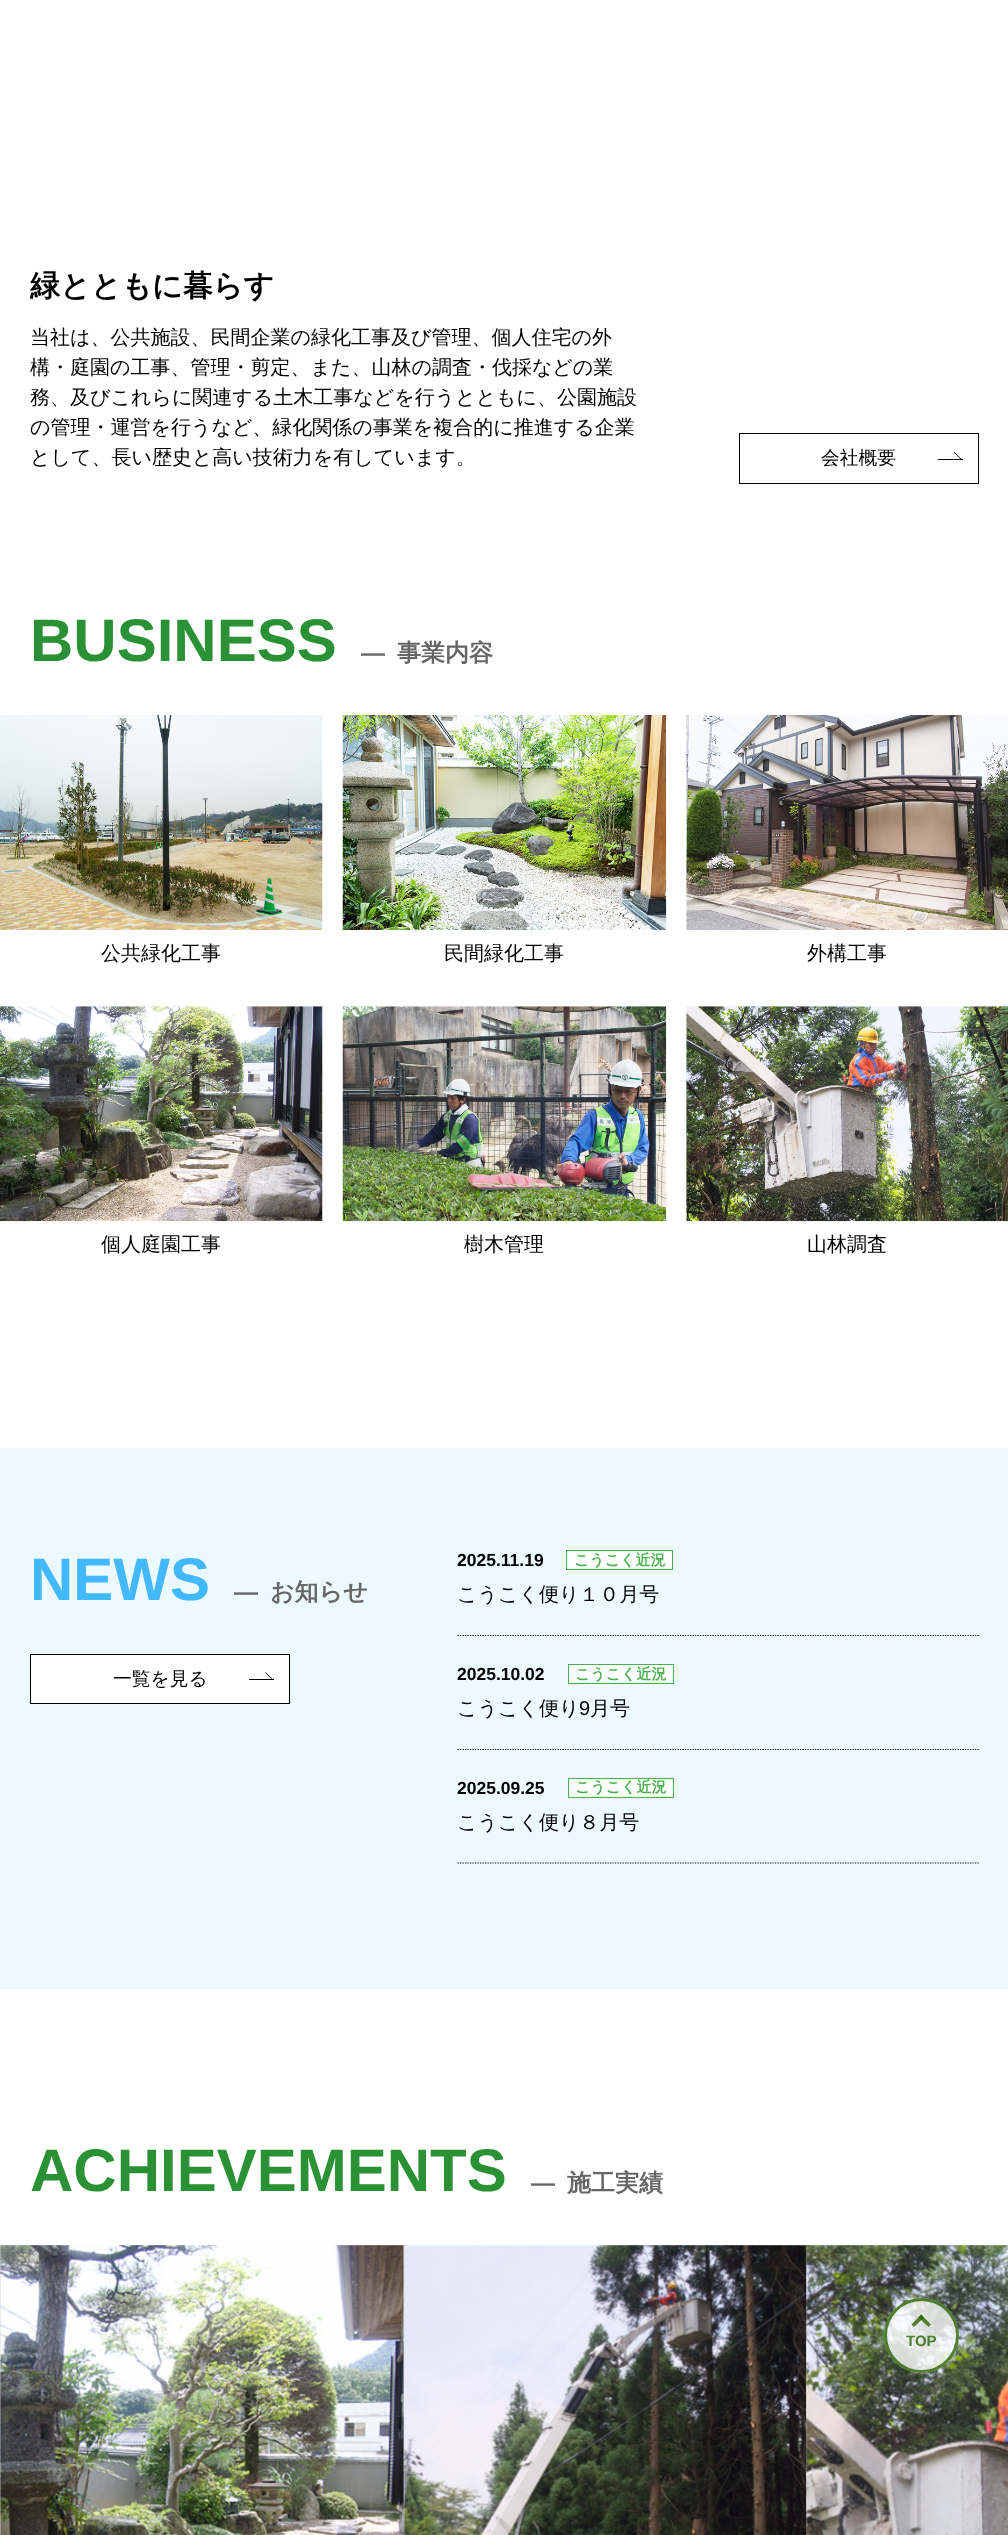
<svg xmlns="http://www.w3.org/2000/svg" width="1008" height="2535">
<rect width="100%" height="100%" fill="#fff"/>
<text x="30" y="296" style="font-family:WenQuanYi Zen Hei;font-size:30px;font-weight:bold;fill:#000">緑とともに暮らす</text>
<text x="30" y="344" style="font-family:WenQuanYi Zen Hei;font-size:20px;font-weight:500;fill:#000">当社は、公共施設、民間企業の緑化工事及び管理、個人住宅の外</text>
<text x="30" y="374" style="font-family:WenQuanYi Zen Hei;font-size:20px;font-weight:500;fill:#000">構・庭園の工事、管理・剪定、また、山林の調査・伐採などの業</text>
<text x="30" y="404" style="font-family:WenQuanYi Zen Hei;font-size:20px;font-weight:500;fill:#000">務、及びこれらに関連する土木工事などを行うとともに、公園施設</text>
<text x="30" y="434" style="font-family:WenQuanYi Zen Hei;font-size:20px;font-weight:500;fill:#000">の管理・運営を行うなど、緑化関係の事業を複合的に推進する企業</text>
<text x="30" y="464" style="font-family:WenQuanYi Zen Hei;font-size:20px;font-weight:500;fill:#000">として、長い歴史と高い技術力を有しています。</text>
<rect x="739.5" y="433.5" width="239" height="50" fill="none" stroke="#000"/>
<text x="821" y="464" style="font-family:WenQuanYi Zen Hei;font-size:18.75px;font-weight:500;fill:#000">会社概要</text>
<rect x="938" y="459" width="25" height="1" fill="#000"/>
<path d="M953.5 452h1l7.5 7.5h-1z" fill="#000"/>
<text x="30" y="661" style="font-family:Liberation Sans;font-size:60px;font-weight:bold;fill:#2a9135">BUSINESS</text>
<text x="361" y="661" style="font-family:Liberation Sans;font-size:24px;font-weight:bold;fill:#666">―</text>
<text x="397" y="661" style="font-family:WenQuanYi Zen Hei;font-size:24px;font-weight:bold;fill:#666">事業内容</text>
<image x="0" y="715" width="323" height="215" href="media/1.png"/>
<text x="101" y="960" style="font-family:WenQuanYi Zen Hei;font-size:20px;font-weight:500;fill:#000">公共緑化工事</text>
<image x="342" y="715" width="325" height="215" href="media/2.png"/>
<text x="444" y="960" style="font-family:WenQuanYi Zen Hei;font-size:20px;font-weight:500;fill:#000">民間緑化工事</text>
<image x="686" y="715" width="322" height="215" href="media/3.png"/>
<text x="807" y="960" style="font-family:WenQuanYi Zen Hei;font-size:20px;font-weight:500;fill:#000">外構工事</text>
<image x="0" y="1006" width="323" height="216" href="media/4.png"/>
<text x="101" y="1251" style="font-family:WenQuanYi Zen Hei;font-size:20px;font-weight:500;fill:#000">個人庭園工事</text>
<image x="342" y="1006" width="325" height="216" href="media/5.png"/>
<text x="464" y="1251" style="font-family:WenQuanYi Zen Hei;font-size:20px;font-weight:500;fill:#000">樹木管理</text>
<image x="686" y="1006" width="322" height="216" href="media/6.png"/>
<text x="807" y="1251" style="font-family:WenQuanYi Zen Hei;font-size:20px;font-weight:500;fill:#000">山林調査</text>
<rect y="1448" width="1008" height="541" fill="#ecf9ff"/>
<text x="30" y="1600" style="font-family:Liberation Sans;font-size:60px;font-weight:bold;fill:#42b9fd">NEWS</text>
<text x="234" y="1600" style="font-family:Liberation Sans;font-size:24px;font-weight:bold;fill:#666">―</text>
<text x="270" y="1600" style="font-family:WenQuanYi Zen Hei;font-size:24px;font-weight:bold;fill:#666">お知らせ</text>
<rect x="30.5" y="1654.5" width="259" height="49" fill="#fff" stroke="#000"/>
<text x="113" y="1685" style="font-family:WenQuanYi Zen Hei;font-size:18.75px;font-weight:500;fill:#000">一覧を見る</text>
<rect x="249" y="1679" width="25" height="1" fill="#000"/>
<path d="M265 1672.5h1l7.5 7.5h-1z" fill="#000"/>
<text x="457" y="1566" style="font-family:Liberation Sans;font-size:17.5px;font-weight:bold;fill:#000">2025.11.19</text>
<rect x="566.5" y="1550.5" width="106" height="19" fill="#fff" stroke="#4cb050"/>
<text x="574" y="1565" style="font-family:WenQuanYi Zen Hei;font-size:15px;font-weight:bold;fill:#4cb050">こうこく近況</text>
<path d="M457.5 1635.5h521.5" fill="none" stroke="#000" stroke-width="1.2" stroke-dasharray="1.25 1.25"/>
<text x="457" y="1601" style="font-family:WenQuanYi Zen Hei;font-size:20px;font-weight:500;fill:#000">こうこく便り１０月号</text>
<text x="457" y="1680" style="font-family:Liberation Sans;font-size:17.5px;font-weight:bold;fill:#000">2025.10.02</text>
<rect x="568.5" y="1664.5" width="105" height="19" fill="#fff" stroke="#4cb050"/>
<text x="575" y="1679" style="font-family:WenQuanYi Zen Hei;font-size:15px;font-weight:bold;fill:#4cb050">こうこく近況</text>
<path d="M457.5 1749.5h521.5" fill="none" stroke="#000" stroke-width="1.2" stroke-dasharray="1.25 1.25"/>
<text x="457" y="1715" style="font-family:WenQuanYi Zen Hei;font-size:20px;font-weight:500;fill:#000">こうこく便り</text>
<text x="579" y="1715" style="font-family:Liberation Sans;font-size:20px;fill:#000">9</text>
<text x="590" y="1715" style="font-family:WenQuanYi Zen Hei;font-size:20px;font-weight:500;fill:#000">月号</text>
<text x="457" y="1794" style="font-family:Liberation Sans;font-size:17.5px;font-weight:bold;fill:#000">2025.09.25</text>
<rect x="568.5" y="1778.5" width="105" height="19" fill="#fff" stroke="#4cb050"/>
<text x="575" y="1792" style="font-family:WenQuanYi Zen Hei;font-size:15px;font-weight:bold;fill:#4cb050">こうこく近況</text>
<path d="M457.5 1863h521.5" fill="none" stroke="#000" stroke-width="1.2" stroke-dasharray="1.25 1.25"/>
<text x="457" y="1829" style="font-family:WenQuanYi Zen Hei;font-size:20px;font-weight:500;fill:#000">こうこく便り８月号</text>
<text x="30" y="2191" style="font-family:Liberation Sans;font-size:60px;font-weight:bold;fill:#2a9135">ACHIEVEMENTS</text>
<text x="531" y="2191" style="font-family:Liberation Sans;font-size:24px;font-weight:bold;fill:#666">―</text>
<text x="567" y="2191" style="font-family:WenQuanYi Zen Hei;font-size:24px;font-weight:bold;fill:#666">施工実績</text>
<image x="0" y="2245" width="1" height="290" href="media/7.png"/>
<image x="0" y="2245" width="405" height="290" href="media/8.png"/>
<image x="403" y="2245" width="404" height="290" href="media/9.png"/>
<image x="806" y="2245" width="202" height="290" href="media/10.png"/>
<circle cx="921.5" cy="2335.5" r="37.5" fill="#ffffffcc"/>
<circle cx="921.5" cy="2335.5" r="36" fill="none" stroke="#286400cc" stroke-width="3"/>
<path d="M911.5 2324.5l9.5-10l3 3l-10 9.5z" fill="#286400cc"/>
<path d="M918.5 2317.5l2.5-3l10 10l-2.5 2.5z" fill="#286400cc"/>
<text x="906" y="2346" style="font-family:Liberation Sans;font-size:15px;font-weight:bold;fill:#4d7e2e">TOP</text>
</svg>
